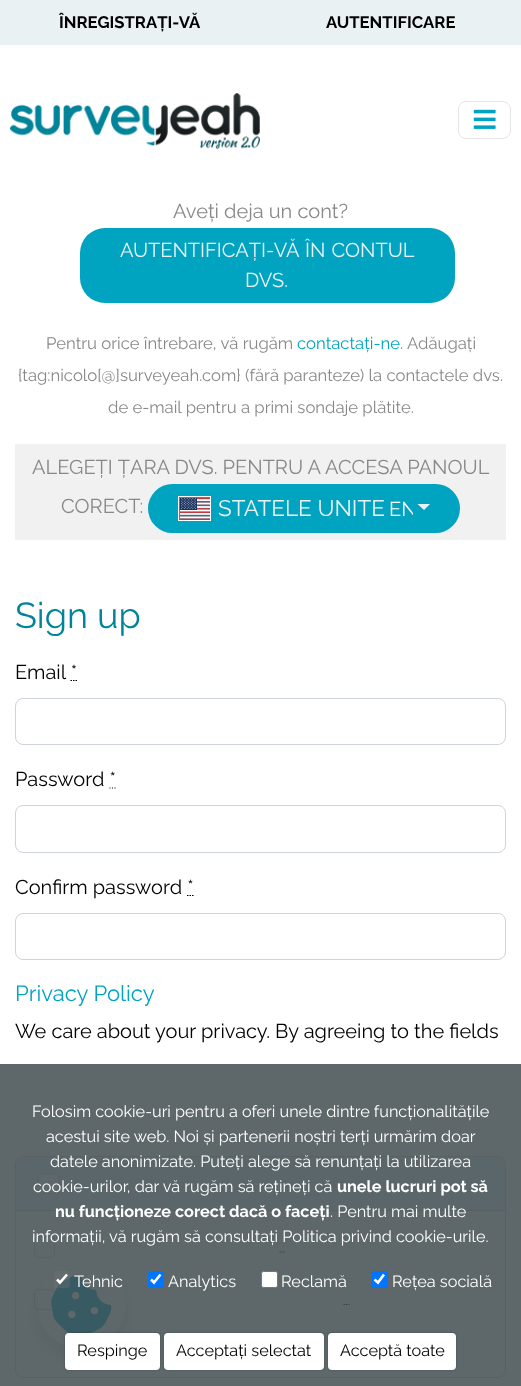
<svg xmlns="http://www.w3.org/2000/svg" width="521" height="1386">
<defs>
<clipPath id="clip1"><rect x="178" y="491" width="235" height="34"/></clipPath>
<clipPath id="clip2"><path d="M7 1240h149v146h-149zm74.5 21c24 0 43.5 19.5 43.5 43.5v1c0 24-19.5 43.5-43.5 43.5c-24 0-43.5-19.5-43.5-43.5v-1c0-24 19.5-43.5 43.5-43.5z" clip-rule="evenodd"/></clipPath>
</defs>
<rect width="100%" height="100%" fill="#fff"/>
<rect width="521" height="45" fill="#eaf1f3"/>
<text x="59" y="28" style="font-family:Raleway;font-size:16.7px;font-weight:bold;fill:#000">ÎNREGISTRAȚI-VĂ</text>
<text x="326" y="28" style="font-family:Raleway;font-size:16.7px;font-weight:bold;fill:#000">AUTENTIFICARE</text>
<image x="10" y="93" width="250" height="57" href="media/1.png"/>
<rect x="458.5" y="101.5" width="52" height="37" rx="7.5" fill="none" stroke="#e6e6e6"/>
<image x="473" y="109" width="23" height="20" href="media/2.png"/>
<text x="173" y="218" style="font-family:Raleway;font-size:20px;fill:#888">Aveți deja un cont?</text>
<rect x="80" y="228" width="375" height="75" rx="25" fill="#01a4c0"/>
<text x="120" y="257" word-spacing="1" style="font-family:Raleway;font-size:20px;fill:#eaf1f3">AUTENTIFICAȚI-VĂ ÎN CONTUL</text>
<text x="245" y="287" style="font-family:Raleway;font-size:20px;fill:#eaf1f3">DVS.</text>
<text x="46" y="349" style="font-family:Raleway;font-size:16.7px;fill:#888">Pentru orice întrebare, vă rugăm</text>
<text x="297" y="349" style="font-family:Raleway;font-size:16.7px;fill:#01a4c0">contactați-ne</text>
<text x="400" y="349" style="font-family:Raleway;font-size:16.7px;fill:#888">.</text>
<text x="407" y="349" style="font-family:Raleway;font-size:16.7px;fill:#888">Adăugați</text>
<text x="18" y="381" style="font-family:Raleway;font-size:16.7px;fill:#888">{tag:nicolo[@]surveyeah.com} (fără paranteze) la contactele dvs.</text>
<text x="108" y="413" style="font-family:Raleway;font-size:16.7px;fill:#888">de e-mail pentru a primi sondaje plătite.</text>
<rect x="15" y="444" width="491" height="96" fill="#f1f1f1"/>
<text x="32" y="474" style="font-family:Raleway;font-size:20px;fill:#888">ALEGEȚI ȚARA DVS. PENTRU A ACCESA PANOUL</text>
<text x="61" y="513" style="font-family:Raleway;font-size:20px;fill:#888">CORECT:</text>
<rect x="148" y="484" width="312" height="49" rx="24.5" fill="#01a4c0"/>
<image x="180" y="498" width="30" height="22" href="media/3.png"/>
<rect x="178.5" y="496.5" width="32" height="24" fill="none" stroke="#fff"/>
<text x="218" y="516" style="font-family:Raleway;font-size:22.5px;fill:#eaf1f3">STATELE UNITE</text>
<g clip-path="url(#clip1)">
<text x="389" y="516" style="font-family:Raleway;font-size:20px;fill:#fff">EN</text>
</g>
<path d="M417.5 504h12.5l-6 6z" fill="#eaf1f3"/>
<text x="15" y="628" style="font-family:Raleway;font-size:36px;fill:#018399">Sign up</text>
<text x="15" y="679" style="font-family:Raleway;font-size:20px;fill:#000">Email *</text>
<path d="M70.5 680.5h1.5m1 0h1.5m1 0h1.5" fill="none" stroke="#000" stroke-width="1.2"/>
<rect x="15.5" y="698.5" width="490" height="46" rx="7.5" fill="none" stroke="#ced4da"/>
<text x="15" y="786" style="font-family:Raleway;font-size:20px;fill:#000">Password *</text>
<path d="M109.5 788h1m1.5 0h1m1.5 0h1" fill="none" stroke="#000" stroke-width="1.2"/>
<rect x="15.5" y="805.5" width="490" height="47" rx="7.5" fill="none" stroke="#ced4da"/>
<text x="15" y="894" style="font-family:Raleway;font-size:20px;fill:#000">Confirm password *</text>
<path d="M187 895.5h1.5m1 0h1.5m1 0h1.5" fill="none" stroke="#000" stroke-width="1.2"/>
<rect x="15.5" y="913.5" width="490" height="46" rx="7.5" fill="none" stroke="#ced4da"/>
<text x="15" y="1001" style="font-family:Raleway;font-size:22px;fill:#01a4c0">Privacy Policy</text>
<text x="15" y="1038" style="font-family:Raleway;font-size:20px;fill:#000">We care about your privacy. By agreeing to the fields</text>
<rect x="15.5" y="1156.5" width="490" height="221" rx="7.5" fill="none" stroke="#d2d2d2"/>
<path d="M22 1158h477c3.5 0 6 2.5 6 6v47h-489v-47c0-3.5 2.5-6 6-6z" fill="#eaf1f3"/>
<rect x="16" y="1210" width="489" height="1" fill="#c1c7c8"/>
<rect x="38.5" y="1173.5" width="20" height="20" rx="3.5" fill="#fff" stroke="#ced4da"/>
<rect x="34.5" y="1236.5" width="20" height="21" rx="3.5" fill="none" stroke="#ced4da"/>
<path d="M279.5 1252h1.5m1 0h1.5m1 0h.5" fill="none" stroke="#000" stroke-width="1.2"/>
<rect x="34.5" y="1289.5" width="20" height="20" rx="3.5" fill="none" stroke="#ced4da"/>
<path d="M343.5 1304.5h1.5m1 0h1.5m1 0h1" fill="none" stroke="#000" stroke-width="1.2"/>
<g clip-path="url(#clip2)">
<rect x="38" y="1271" width="87" height="88" rx="43.5" fill="#00000026" filter="blur(10px)"/>
</g>
<image x="51" y="1275" width="61" height="58" href="media/4.png"/>
<rect y="1064" width="521" height="322" fill="#424e51d9"/>
<text x="32" y="1117" style="font-family:Raleway;font-size:16.25px;fill:#fff">Folosim cookie-uri pentru a oferi unele dintre funcționalitățile</text>
<text x="46" y="1142" style="font-family:Raleway;font-size:16.25px;fill:#fff">acestui site web. Noi și partenerii noștri terți urmărim doar</text>
<text x="50" y="1167" style="font-family:Raleway;font-size:16.25px;fill:#fff">datele anonimizate. Puteți alege să renunțați la utilizarea</text>
<text x="33" y="1192" style="font-family:Raleway;font-size:16.25px;fill:#fff">cookie-urilor, dar vă rugăm să rețineți că</text>
<text x="337" y="1192" style="font-family:Raleway;font-size:16.25px;font-weight:bold;fill:#fff">unele lucruri pot să</text>
<text x="55" y="1217" style="font-family:Raleway;font-size:16.25px;font-weight:bold;fill:#fff">nu funcționeze corect dacă o faceți</text>
<text x="330" y="1217" style="font-family:Raleway;font-size:16.25px;fill:#fff">. Pentru mai multe</text>
<text x="32" y="1242" style="font-family:Raleway;font-size:16.25px;fill:#fff">informații, vă rugăm să consultați Politica privind cookie-urile.</text>
<rect x="54" y="1271" width="16" height="17" rx="2.5" fill="#7676764d"/>
<path d="M57 1279.5l3 3l7-8" fill="none" stroke="#fff" stroke-width="2.6"/>
<text x="74" y="1287" style="font-family:Raleway;font-size:16.25px;fill:#fff">Tehnic</text>
<rect x="148" y="1271" width="16" height="17" rx="2.5" fill="#0075ff"/>
<path d="M151 1279.5l3 3l6.5-8" fill="none" stroke="#fff" stroke-width="2.6"/>
<text x="168" y="1287" style="font-family:Raleway;font-size:16.25px;fill:#fff">Analytics</text>
<rect x="261.5" y="1271.5" width="16" height="16" rx="2" fill="#fff" stroke="#767676"/>
<text x="281" y="1287" style="font-family:Raleway;font-size:16.25px;fill:#fff">Reclamă</text>
<rect x="371" y="1271" width="17" height="17" rx="2.5" fill="#0075ff"/>
<path d="M374.5 1279.5l3.5 3l6-8" fill="none" stroke="#fff" stroke-width="2.6"/>
<text x="392" y="1287" style="font-family:Raleway;font-size:16.25px;fill:#fff">Rețea socială</text>
<rect x="65" y="1333" width="95" height="37" rx="4" fill="#00000040" filter="blur(1px)"/>
<rect x="65" y="1333" width="95" height="37" rx="4" fill="#fff"/>
<text x="77" y="1356" style="font-family:Raleway;font-size:16.25px;fill:#000">Respinge</text>
<rect x="164" y="1333" width="160" height="37" rx="4" fill="#00000040" filter="blur(1px)"/>
<rect x="164" y="1333" width="160" height="37" rx="4" fill="#fff"/>
<text x="176" y="1356" style="font-family:Raleway;font-size:16.25px;fill:#000">Acceptați selectat</text>
<rect x="328" y="1333" width="128" height="37" rx="4" fill="#00000040" filter="blur(1px)"/>
<rect x="328" y="1333" width="128" height="37" rx="4" fill="#fff"/>
<text x="340" y="1356" style="font-family:Raleway;font-size:16.25px;fill:#000">Acceptă toate</text>
</svg>
